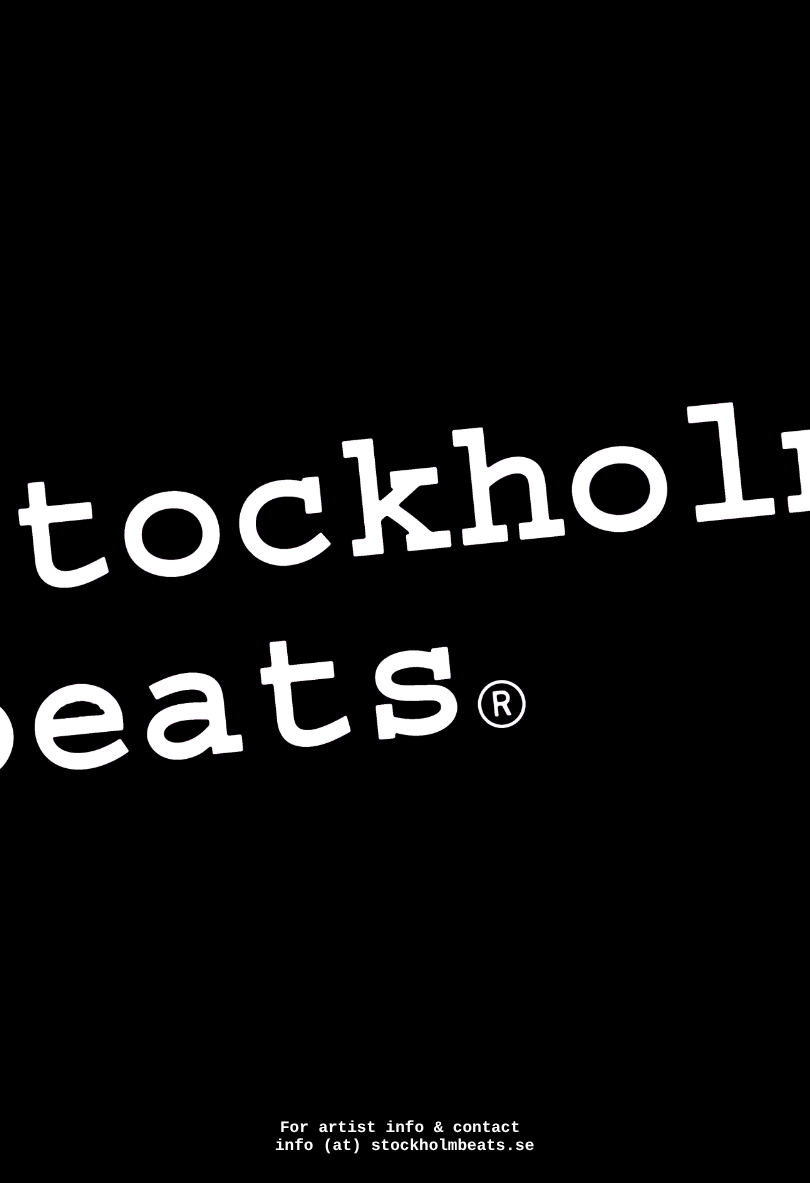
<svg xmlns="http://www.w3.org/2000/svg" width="810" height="1183">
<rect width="100%" height="100%" fill="#000"/>
<image x="0" y="402" width="810" height="368" href="media/1.png"/>
<text x="280" y="1132" style="font-family:Liberation Mono;font-size:16px;font-weight:bold;fill:#fff">For artist info &amp; contact</text>
<text x="275" y="1150" style="font-family:Liberation Mono;font-size:16px;font-weight:bold;fill:#fff">info (at) stockholmbeats.se</text>
</svg>
